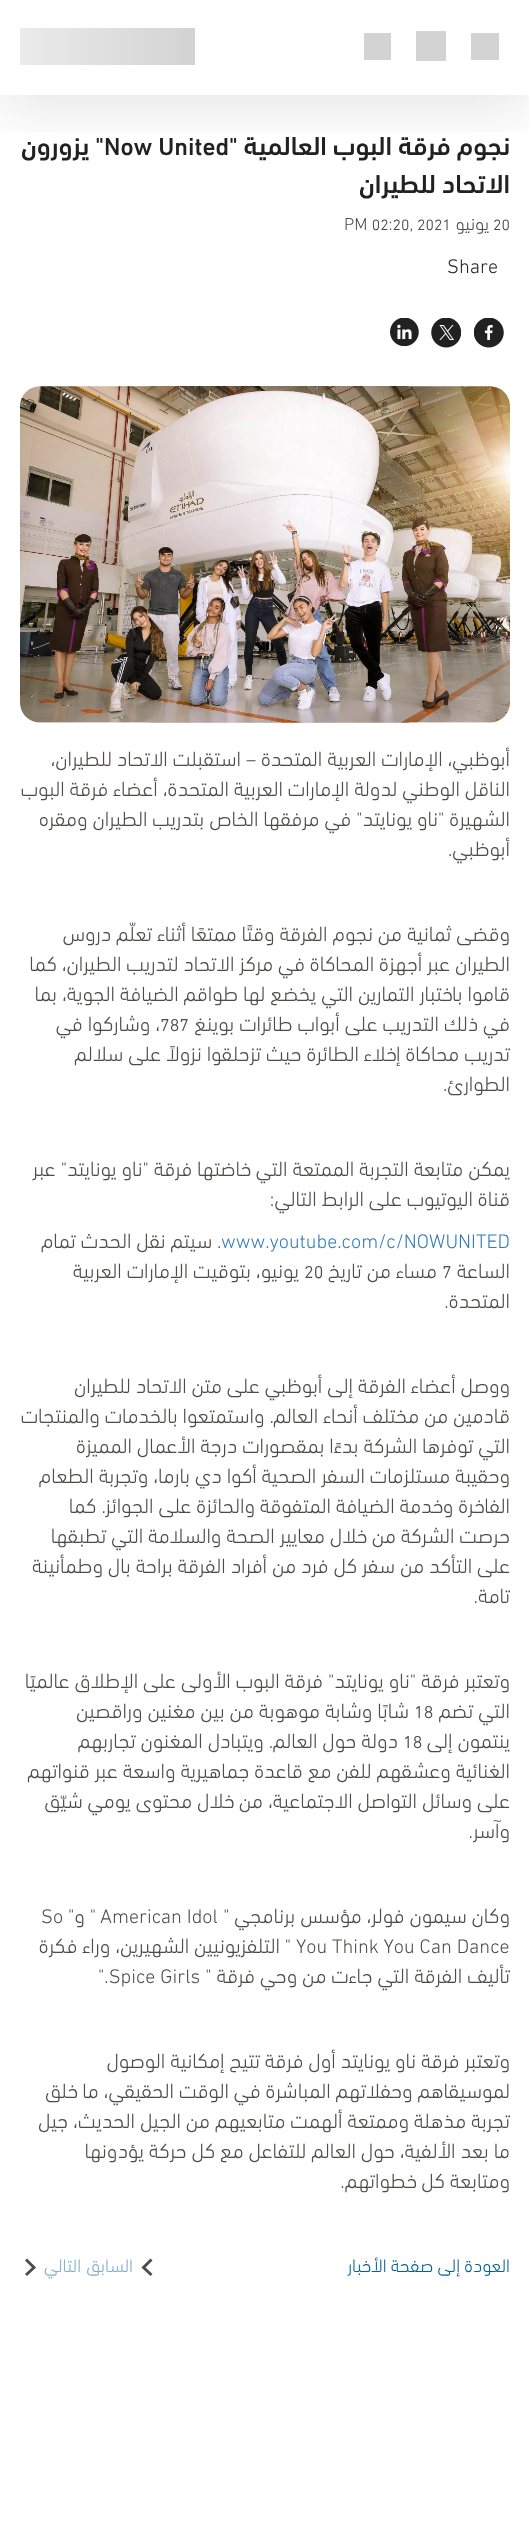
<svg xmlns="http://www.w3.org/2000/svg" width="529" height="2532">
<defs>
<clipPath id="clip1"><rect x="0" y="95" width="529" height="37"/></clipPath>
<linearGradient id="g1" gradientUnits="userSpaceOnUse" x1="-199" y1="63" x2="199" y2="62"><stop offset="0" stop-color="#fff" stop-opacity="0"/><stop offset="0.5" stop-color="#fff" stop-opacity="0.6"/><stop offset="1" stop-color="#fff" stop-opacity="0"/></linearGradient>
</defs>
<rect width="100%" height="100%" fill="#fff"/>
<g clip-path="url(#clip1)">
<rect y="13" width="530" height="95" fill="#0000001a" filter="blur(28px)"/>
</g>
<rect x="20" y="28" width="175" height="37" fill="#d3d3d3"/>
<rect x="364" y="33" width="27" height="27" fill="#d3d3d3"/>
<rect x="416" y="31" width="30" height="30" fill="#d3d3d3"/>
<rect x="471" y="33" width="28" height="27" fill="#d3d3d3"/>
<rect x="20" y="28" width="159" height="37" fill="url(#g1)"/>
<text x="510" y="155" style="font-family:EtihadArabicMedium;font-size:25px;font-weight:500;direction:rtl;fill:#212121">نجوم فرقة البوب العالمية "</text>
<text x="104" y="155" style="font-family:EtihadArabicMedium;font-size:25px;font-weight:500;fill:#212121">Now United</text>
<text x="104" y="155" style="font-family:EtihadArabicMedium;font-size:25px;font-weight:500;direction:rtl;fill:#212121">" يزورون</text>
<text x="510" y="193" style="font-family:EtihadArabicMedium;font-size:25px;font-weight:500;direction:rtl;fill:#212121">الاتحاد للطيران</text>
<text x="493" y="230" style="font-family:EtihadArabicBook;font-size:17.5px;fill:#4e4c4a">20</text>
<text x="489" y="230" style="font-family:EtihadArabicBook;font-size:17.5px;direction:rtl;fill:#4e4c4a">يونيو</text>
<text x="344" y="230" style="font-family:EtihadArabicBook;font-size:17.5px;fill:#4e4c4a">PM 02:20, 2021</text>
<text x="447" y="273" style="font-family:EtihadArabicBook;font-size:20px;fill:#212121">Share</text>
<image x="474" y="318" width="30" height="30" href="media/1.png"/>
<image x="431" y="318" width="30" height="30" href="media/2.png"/>
<image x="390" y="318" width="29" height="28" href="media/3.png"/>
<image x="20" y="386" width="490" height="337" href="media/4.png"/>
<text x="510" y="766" style="font-family:EtihadArabicBook;font-size:20px;direction:rtl;fill:#4e4c4a">أبوظبي، الإمارات العربية المتحدة – استقبلت الاتحاد للطيران،</text>
<text x="510" y="796" style="font-family:EtihadArabicBook;font-size:20px;direction:rtl;fill:#4e4c4a">الناقل الوطني لدولة الإمارات العربية المتحدة، أعضاء فرقة البوب</text>
<text x="510" y="826" style="font-family:EtihadArabicBook;font-size:20px;direction:rtl;fill:#4e4c4a">الشهيرة "ناو يونايتد" في مرفقها الخاص بتدريب الطيران ومقره</text>
<text x="510" y="856" style="font-family:EtihadArabicBook;font-size:20px;direction:rtl;fill:#4e4c4a">أبوظبي.</text>
<text x="510" y="941" style="font-family:EtihadArabicBook;font-size:20px;direction:rtl;fill:#4e4c4a">وقضى ثمانية من نجوم الفرقة وقتًا ممتعًا أثناء تعلّم دروس</text>
<text x="510" y="971" style="font-family:EtihadArabicBook;font-size:20px;direction:rtl;fill:#4e4c4a">الطيران عبر أجهزة المحاكاة في مركز الاتحاد لتدريب الطيران، كما</text>
<text x="510" y="1001" style="font-family:EtihadArabicBook;font-size:20px;direction:rtl;fill:#4e4c4a">قاموا باختبار التمارين التي يخضع لها طواقم الضيافة الجوية، بما</text>
<text x="510" y="1031" style="font-family:EtihadArabicBook;font-size:20px;direction:rtl;fill:#4e4c4a">في ذلك التدريب على أبواب طائرات بوينغ</text>
<text x="160" y="1031" style="font-family:EtihadArabicBook;font-size:20px;fill:#4e4c4a">787</text>
<text x="160" y="1031" style="font-family:EtihadArabicBook;font-size:20px;direction:rtl;fill:#4e4c4a">، وشاركوا في</text>
<text x="510" y="1061" style="font-family:EtihadArabicBook;font-size:20px;direction:rtl;fill:#4e4c4a">تدريب محاكاة إخلاء الطائرة حيث تزحلقوا نزولاً على سلالم</text>
<text x="510" y="1091" style="font-family:EtihadArabicBook;font-size:20px;direction:rtl;fill:#4e4c4a">الطوارئ.</text>
<text x="510" y="1176" style="font-family:EtihadArabicBook;font-size:20px;direction:rtl;fill:#4e4c4a">يمكن متابعة التجربة الممتعة التي خاضتها فرقة "ناو يونايتد" عبر</text>
<text x="510" y="1206" style="font-family:EtihadArabicBook;font-size:20px;direction:rtl;fill:#4e4c4a">قناة اليوتيوب على الرابط التالي:</text>
<text x="221" y="1248" style="font-family:EtihadArabicBook;font-size:20px;fill:#337ab7">www.youtube.com/c/NOWUNITED</text>
<text x="221" y="1248" style="font-family:EtihadArabicBook;font-size:20px;direction:rtl;fill:#4e4c4a">. سيتم نقل الحدث تمام</text>
<text x="510" y="1278" style="font-family:EtihadArabicBook;font-size:20px;direction:rtl;fill:#4e4c4a">الساعة</text>
<text x="442" y="1278" style="font-family:EtihadArabicBook;font-size:20px;fill:#4e4c4a">7</text>
<text x="437" y="1278" style="font-family:EtihadArabicBook;font-size:20px;direction:rtl;fill:#4e4c4a">مساء من تاريخ</text>
<text x="304" y="1278" style="font-family:EtihadArabicBook;font-size:20px;fill:#4e4c4a">20</text>
<text x="299" y="1278" style="font-family:EtihadArabicBook;font-size:20px;direction:rtl;fill:#4e4c4a">يونيو، بتوقيت الإمارات العربية</text>
<text x="510" y="1308" style="font-family:EtihadArabicBook;font-size:20px;direction:rtl;fill:#4e4c4a">المتحدة.</text>
<text x="510" y="1393" style="font-family:EtihadArabicBook;font-size:20px;direction:rtl;fill:#4e4c4a">ووصل أعضاء الفرقة إلى أبوظبي على متن الاتحاد للطيران</text>
<text x="510" y="1423" style="font-family:EtihadArabicBook;font-size:20px;direction:rtl;fill:#4e4c4a">قادمين من مختلف أنحاء العالم. واستمتعوا بالخدمات والمنتجات</text>
<text x="510" y="1453" style="font-family:EtihadArabicBook;font-size:20px;direction:rtl;fill:#4e4c4a">التي توفرها الشركة بدءًا بمقصورات درجة الأعمال المميزة</text>
<text x="510" y="1483" style="font-family:EtihadArabicBook;font-size:20px;direction:rtl;fill:#4e4c4a">وحقيبة مستلزمات السفر الصحية أكوا دي بارما، وتجربة الطعام</text>
<text x="510" y="1513" style="font-family:EtihadArabicBook;font-size:20px;direction:rtl;fill:#4e4c4a">الفاخرة وخدمة الضيافة المتفوقة والحائزة على الجوائز. كما</text>
<text x="510" y="1543" style="font-family:EtihadArabicBook;font-size:20px;direction:rtl;fill:#4e4c4a">حرصت الشركة من خلال معايير الصحة والسلامة التي تطبقها</text>
<text x="510" y="1573" style="font-family:EtihadArabicBook;font-size:20px;direction:rtl;fill:#4e4c4a">على التأكد من سفر كل فرد من أفراد الفرقة براحة بال وطمأنينة</text>
<text x="510" y="1603" style="font-family:EtihadArabicBook;font-size:20px;direction:rtl;fill:#4e4c4a">تامة.</text>
<text x="510" y="1688" style="font-family:EtihadArabicBook;font-size:20px;direction:rtl;fill:#4e4c4a">وتعتبر فرقة "ناو يونايتد" فرقة البوب الأولى على الإطلاق عالميًا</text>
<text x="510" y="1718" style="font-family:EtihadArabicBook;font-size:20px;direction:rtl;fill:#4e4c4a">التي تضم</text>
<text x="414" y="1718" style="font-family:EtihadArabicBook;font-size:20px;fill:#4e4c4a">18</text>
<text x="409" y="1718" style="font-family:EtihadArabicBook;font-size:20px;direction:rtl;fill:#4e4c4a">شابًا وشابة موهوبة من بين مغنين وراقصين</text>
<text x="510" y="1748" style="font-family:EtihadArabicBook;font-size:20px;direction:rtl;fill:#4e4c4a">ينتمون إلى</text>
<text x="403" y="1748" style="font-family:EtihadArabicBook;font-size:20px;fill:#4e4c4a">18</text>
<text x="398" y="1748" style="font-family:EtihadArabicBook;font-size:20px;direction:rtl;fill:#4e4c4a">دولة حول العالم. ويتبادل المغنون تجاربهم</text>
<text x="510" y="1778" style="font-family:EtihadArabicBook;font-size:20px;direction:rtl;fill:#4e4c4a">الغنائية وعشقهم للفن مع قاعدة جماهيرية واسعة عبر قنواتهم</text>
<text x="510" y="1808" style="font-family:EtihadArabicBook;font-size:20px;direction:rtl;fill:#4e4c4a">على وسائل التواصل الاجتماعية، من خلال محتوى يومي شيّق</text>
<text x="510" y="1838" style="font-family:EtihadArabicBook;font-size:20px;direction:rtl;fill:#4e4c4a">وآسر.</text>
<text x="510" y="1923" style="font-family:EtihadArabicBook;font-size:20px;direction:rtl;fill:#4e4c4a">وكان سيمون فولر، مؤسس برنامجي "</text>
<text x="100" y="1923" style="font-family:EtihadArabicBook;font-size:20px;fill:#4e4c4a">American Idol</text>
<text x="96" y="1923" style="font-family:EtihadArabicBook;font-size:20px;direction:rtl;fill:#4e4c4a">" و"</text>
<text x="41" y="1923" style="font-family:EtihadArabicBook;font-size:20px;fill:#4e4c4a">So</text>
<text x="296" y="1953" style="font-family:EtihadArabicBook;font-size:20px;fill:#4e4c4a">You Think You Can Dance</text>
<text x="291" y="1953" style="font-family:EtihadArabicBook;font-size:20px;direction:rtl;fill:#4e4c4a">" التلفزيونيين الشهيرين، وراء فكرة</text>
<text x="510" y="1983" style="font-family:EtihadArabicBook;font-size:20px;direction:rtl;fill:#4e4c4a">تأليف الفرقة التي جاءت من وحي فرقة "</text>
<text x="98" y="1983" style="font-family:EtihadArabicBook;font-size:20px;fill:#4e4c4a">".Spice Girls</text>
<text x="510" y="2068" style="font-family:EtihadArabicBook;font-size:20px;direction:rtl;fill:#4e4c4a">وتعتبر فرقة ناو يونايتد أول فرقة تتيح إمكانية الوصول</text>
<text x="510" y="2098" style="font-family:EtihadArabicBook;font-size:20px;direction:rtl;fill:#4e4c4a">لموسيقاهم وحفلاتهم المباشرة في الوقت الحقيقي، ما خلق</text>
<text x="510" y="2128" style="font-family:EtihadArabicBook;font-size:20px;direction:rtl;fill:#4e4c4a">تجربة مذهلة وممتعة ألهمت متابعيهم من الجيل الحديث، جيل</text>
<text x="510" y="2158" style="font-family:EtihadArabicBook;font-size:20px;direction:rtl;fill:#4e4c4a">ما بعد الألفية، حول العالم للتفاعل مع كل حركة يؤدونها</text>
<text x="510" y="2188" style="font-family:EtihadArabicBook;font-size:20px;direction:rtl;fill:#4e4c4a">ومتابعة كل خطواتهم.</text>
<text x="510" y="2272" style="font-family:EtihadArabicBook;font-size:17.5px;direction:rtl;fill:#005f96">العودة إلى صفحة الأخبار</text>
<path d="M151.5 2259.5l-8 8l8 7.5" fill="none" stroke="#4e4c4a" stroke-width="2.9"/>
<text x="133" y="2272" style="font-family:EtihadArabicBook;font-size:17.5px;direction:rtl;fill:#80afcb">السابق</text>
<text x="81" y="2272" style="font-family:EtihadArabicBook;font-size:17.5px;direction:rtl;fill:#80afcb">التالي</text>
<path d="M26 2259.5l8 8l-8 7.5" fill="none" stroke="#4e4c4a" stroke-width="2.9"/>
</svg>
